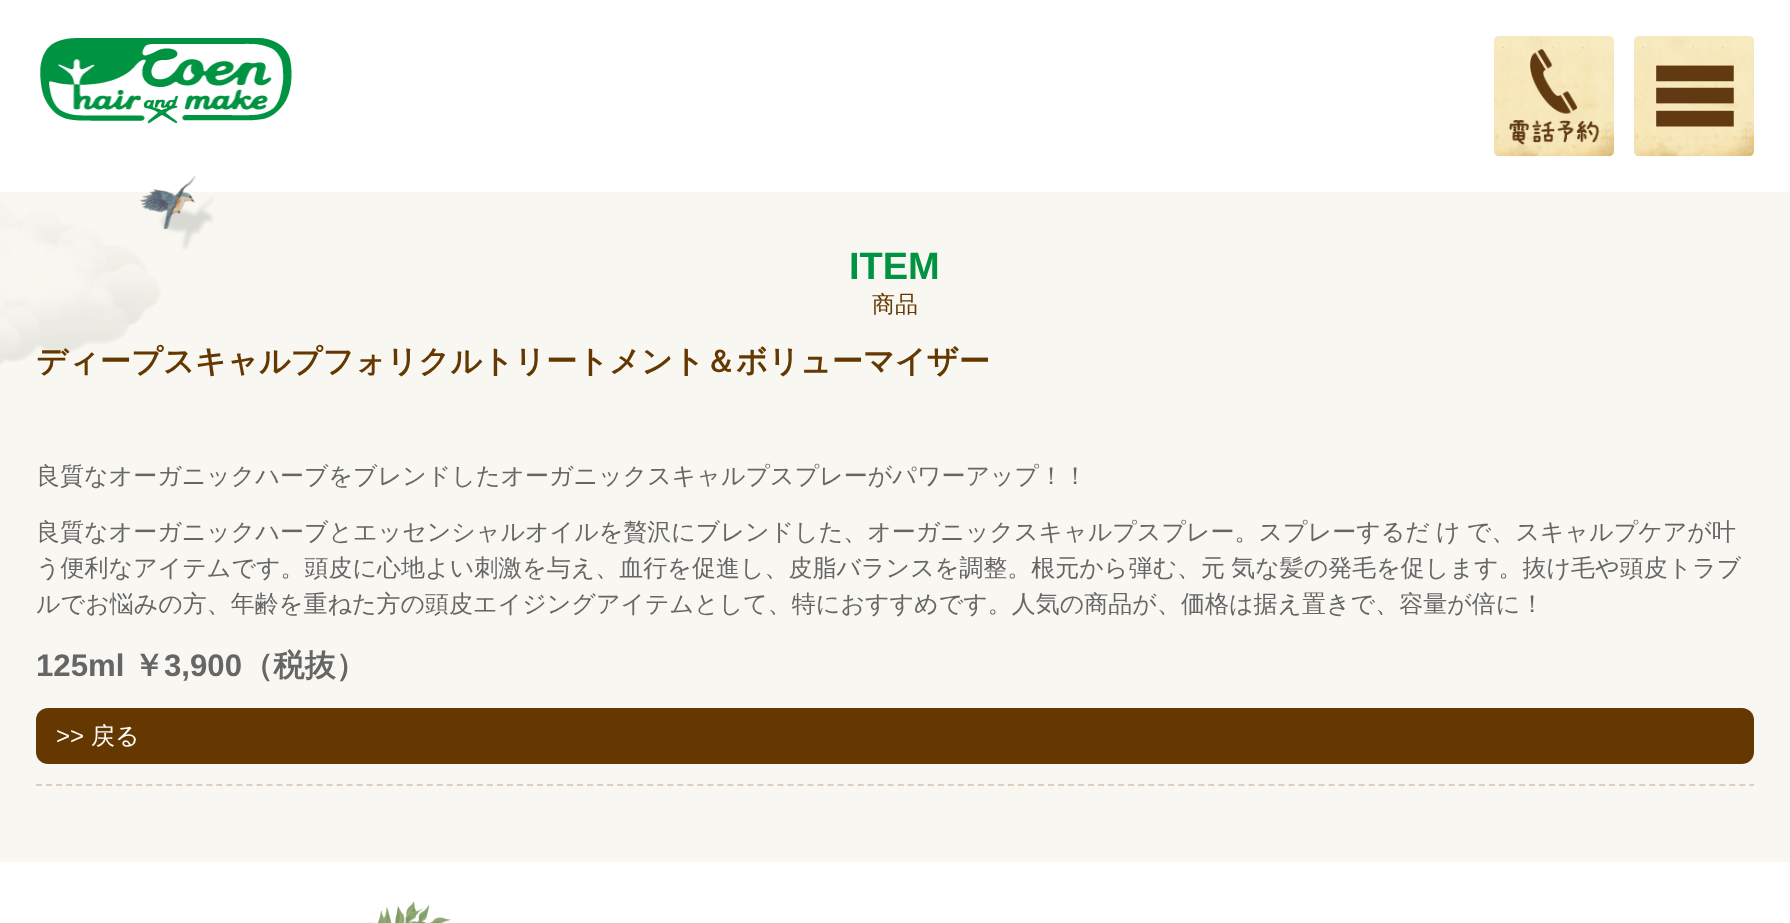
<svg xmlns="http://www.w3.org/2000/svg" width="1790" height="923">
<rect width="100%" height="100%" fill="#fff"/>
<rect y="192" width="1790" height="670" fill="#f8f7f1"/>
<image x="40" y="38" width="252" height="86" href="media/1.png"/>
<image x="1494" y="36" width="120" height="120" href="media/2.png"/>
<image x="1634" y="36" width="120" height="120" href="media/3.png"/>
<image x="0" y="201" width="161" height="165" href="media/4.png"/>
<image x="140" y="176" width="74" height="74" href="media/5.png"/>
<text x="849" y="279" style="font-family:Liberation Sans;font-size:38px;font-weight:bold;fill:#009341">ITEM</text>
<text x="872" y="312" style="font-family:WenQuanYi Zen Hei;font-size:23px;font-weight:500;fill:#643800">商品</text>
<path d="M36 785h1718" fill="none" stroke="#dccfbe" stroke-width="2" stroke-dasharray="6 4.02"/>
<text x="36" y="372" style="font-family:WenQuanYi Zen Hei;font-size:31.2px;font-weight:bold;fill:#643800">ディープスキャルプフォリクルトリートメント＆ボリューマイザー</text>
<text x="36" y="484" style="font-family:WenQuanYi Zen Hei;font-size:24px;font-weight:500;fill:#666">良質なオーガニックハーブをブレンドしたオーガニックスキャルプスプレーがパワーアップ！！</text>
<text x="36" y="540" word-spacing="-1" style="font-family:WenQuanYi Zen Hei;font-size:24px;font-weight:500;fill:#666">良質なオーガニックハーブとエッセンシャルオイルを贅沢にブレンドした、オーガニックスキャルプスプレー。スプレーするだ け で、スキャルプケアが叶</text>
<text x="36" y="576" word-spacing="-1" style="font-family:WenQuanYi Zen Hei;font-size:24px;font-weight:500;fill:#666">う便利なアイテムです。頭皮に心地よい刺激を与え、血行を促進し、皮脂バランスを調整。根元から弾む、元 気な髪の発毛を促します。抜け毛や頭皮トラブ</text>
<text x="36" y="612" style="font-family:WenQuanYi Zen Hei;font-size:24px;font-weight:500;fill:#666">ルでお悩みの方、年齢を重ねた方の頭皮エイジングアイテムとして、特におすすめです。人気の商品が、価格は据え置きで、容量が倍に！</text>
<text x="36" y="676" style="font-family:Liberation Sans;font-size:31.2px;font-weight:bold;fill:#666">125ml</text>
<text x="133" y="676" style="font-family:WenQuanYi Zen Hei;font-size:31.2px;font-weight:bold;fill:#666">￥</text>
<text x="164" y="676" style="font-family:Liberation Sans;font-size:31.2px;font-weight:bold;fill:#666">3,900</text>
<text x="242" y="676" style="font-family:WenQuanYi Zen Hei;font-size:31.2px;font-weight:bold;fill:#666">（税抜）</text>
<rect x="36" y="708" width="1718" height="56" rx="12" fill="#643800"/>
<text x="56" y="744" style="font-family:Liberation Sans;font-size:24px;fill:#fff">&gt;&gt;</text>
<text x="91" y="744" style="font-family:WenQuanYi Zen Hei;font-size:24px;font-weight:500;fill:#fff">戻る</text>
<image x="369" y="902" width="82" height="21" href="media/6.png"/>
</svg>
